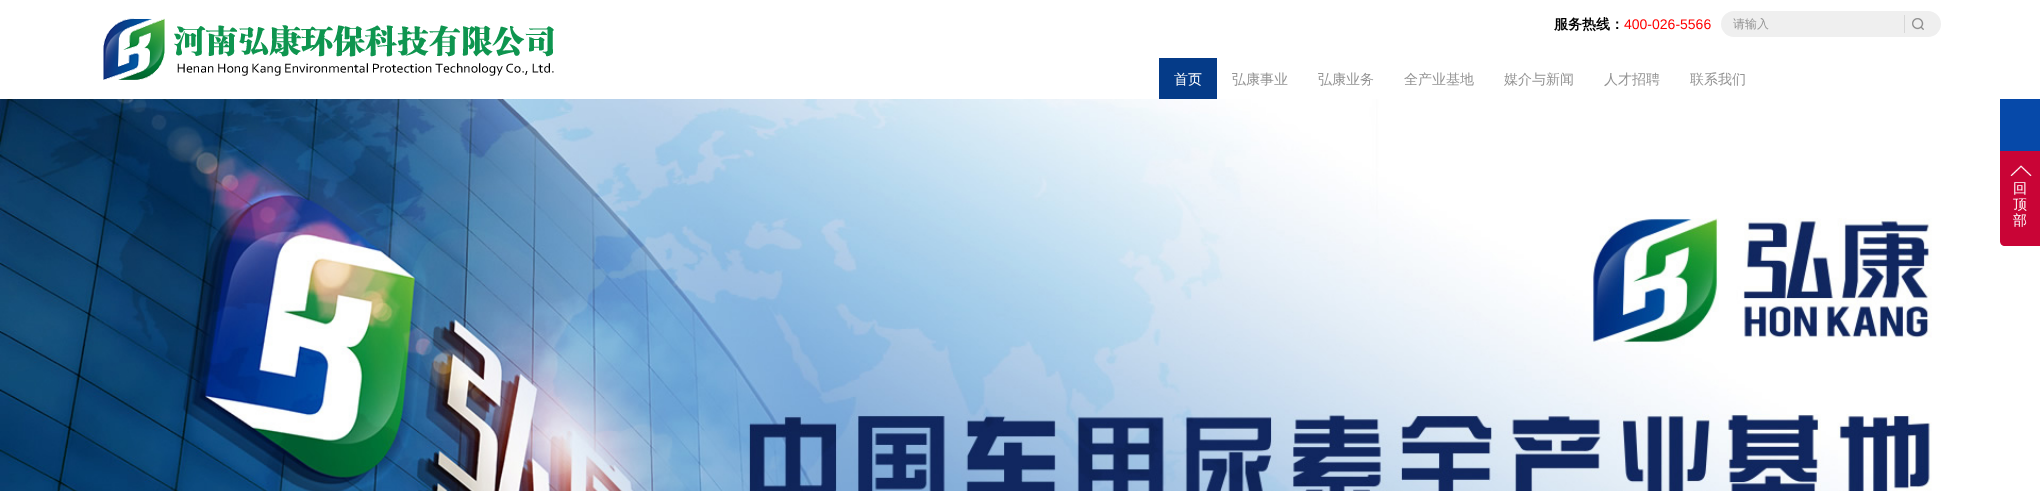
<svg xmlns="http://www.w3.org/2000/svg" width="2040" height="491">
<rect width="100%" height="100%" fill="#fff"/>
<image x="103" y="18" width="451" height="62" href="media/1.png"/>
<text x="1554" y="29" style="font-family:WenQuanYi Zen Hei;font-size:14px;font-weight:bold;fill:#000">服务热线：</text>
<text x="1624" y="29" style="font-family:Liberation Sans;font-size:14px;fill:#f00">400-026-5566</text>
<rect x="1721" y="11" width="220" height="26" rx="13" fill="#efefef"/>
<rect x="1904" y="15" width="1" height="18" fill="#d7d7d7"/>
<text x="1733" y="28" style="font-family:WenQuanYi Zen Hei;font-size:12px;font-weight:500;fill:#949494">请输入</text>
<image x="1912" y="18" width="12" height="12" href="media/2.png"/>
<rect x="1159" y="58" width="58" height="41" fill="#053b88"/>
<text x="1174" y="84" style="font-family:WenQuanYi Zen Hei;font-size:14px;font-weight:500;fill:#fff">首页</text>
<text x="1232" y="84" style="font-family:WenQuanYi Zen Hei;font-size:14px;font-weight:500;fill:#949494">弘康事业</text>
<text x="1318" y="84" style="font-family:WenQuanYi Zen Hei;font-size:14px;font-weight:500;fill:#949494">弘康业务</text>
<text x="1404" y="84" style="font-family:WenQuanYi Zen Hei;font-size:14px;font-weight:500;fill:#949494">全产业基地</text>
<text x="1504" y="84" style="font-family:WenQuanYi Zen Hei;font-size:14px;font-weight:500;fill:#949494">媒介与新闻</text>
<text x="1604" y="84" style="font-family:WenQuanYi Zen Hei;font-size:14px;font-weight:500;fill:#949494">人才招聘</text>
<text x="1690" y="84" style="font-family:WenQuanYi Zen Hei;font-size:14px;font-weight:500;fill:#949494">联系我们</text>
<image x="0" y="99" width="1932" height="392" href="media/3.png"/>
<rect x="2000" y="99" width="40" height="52" fill="#0649a9"/>
<path d="M2000 151h40v95h-35c-3 0-5-2-5-5z" fill="#c90436"/>
<image x="2010" y="165" width="22" height="11" href="media/4.png"/>
<text x="2013" y="193" style="font-family:WenQuanYi Zen Hei;font-size:14px;font-weight:500;fill:#fff">回</text>
<text x="2013" y="209" style="font-family:WenQuanYi Zen Hei;font-size:14px;font-weight:500;fill:#fff">顶</text>
<text x="2013" y="225" style="font-family:WenQuanYi Zen Hei;font-size:14px;font-weight:500;fill:#fff">部</text>
</svg>
